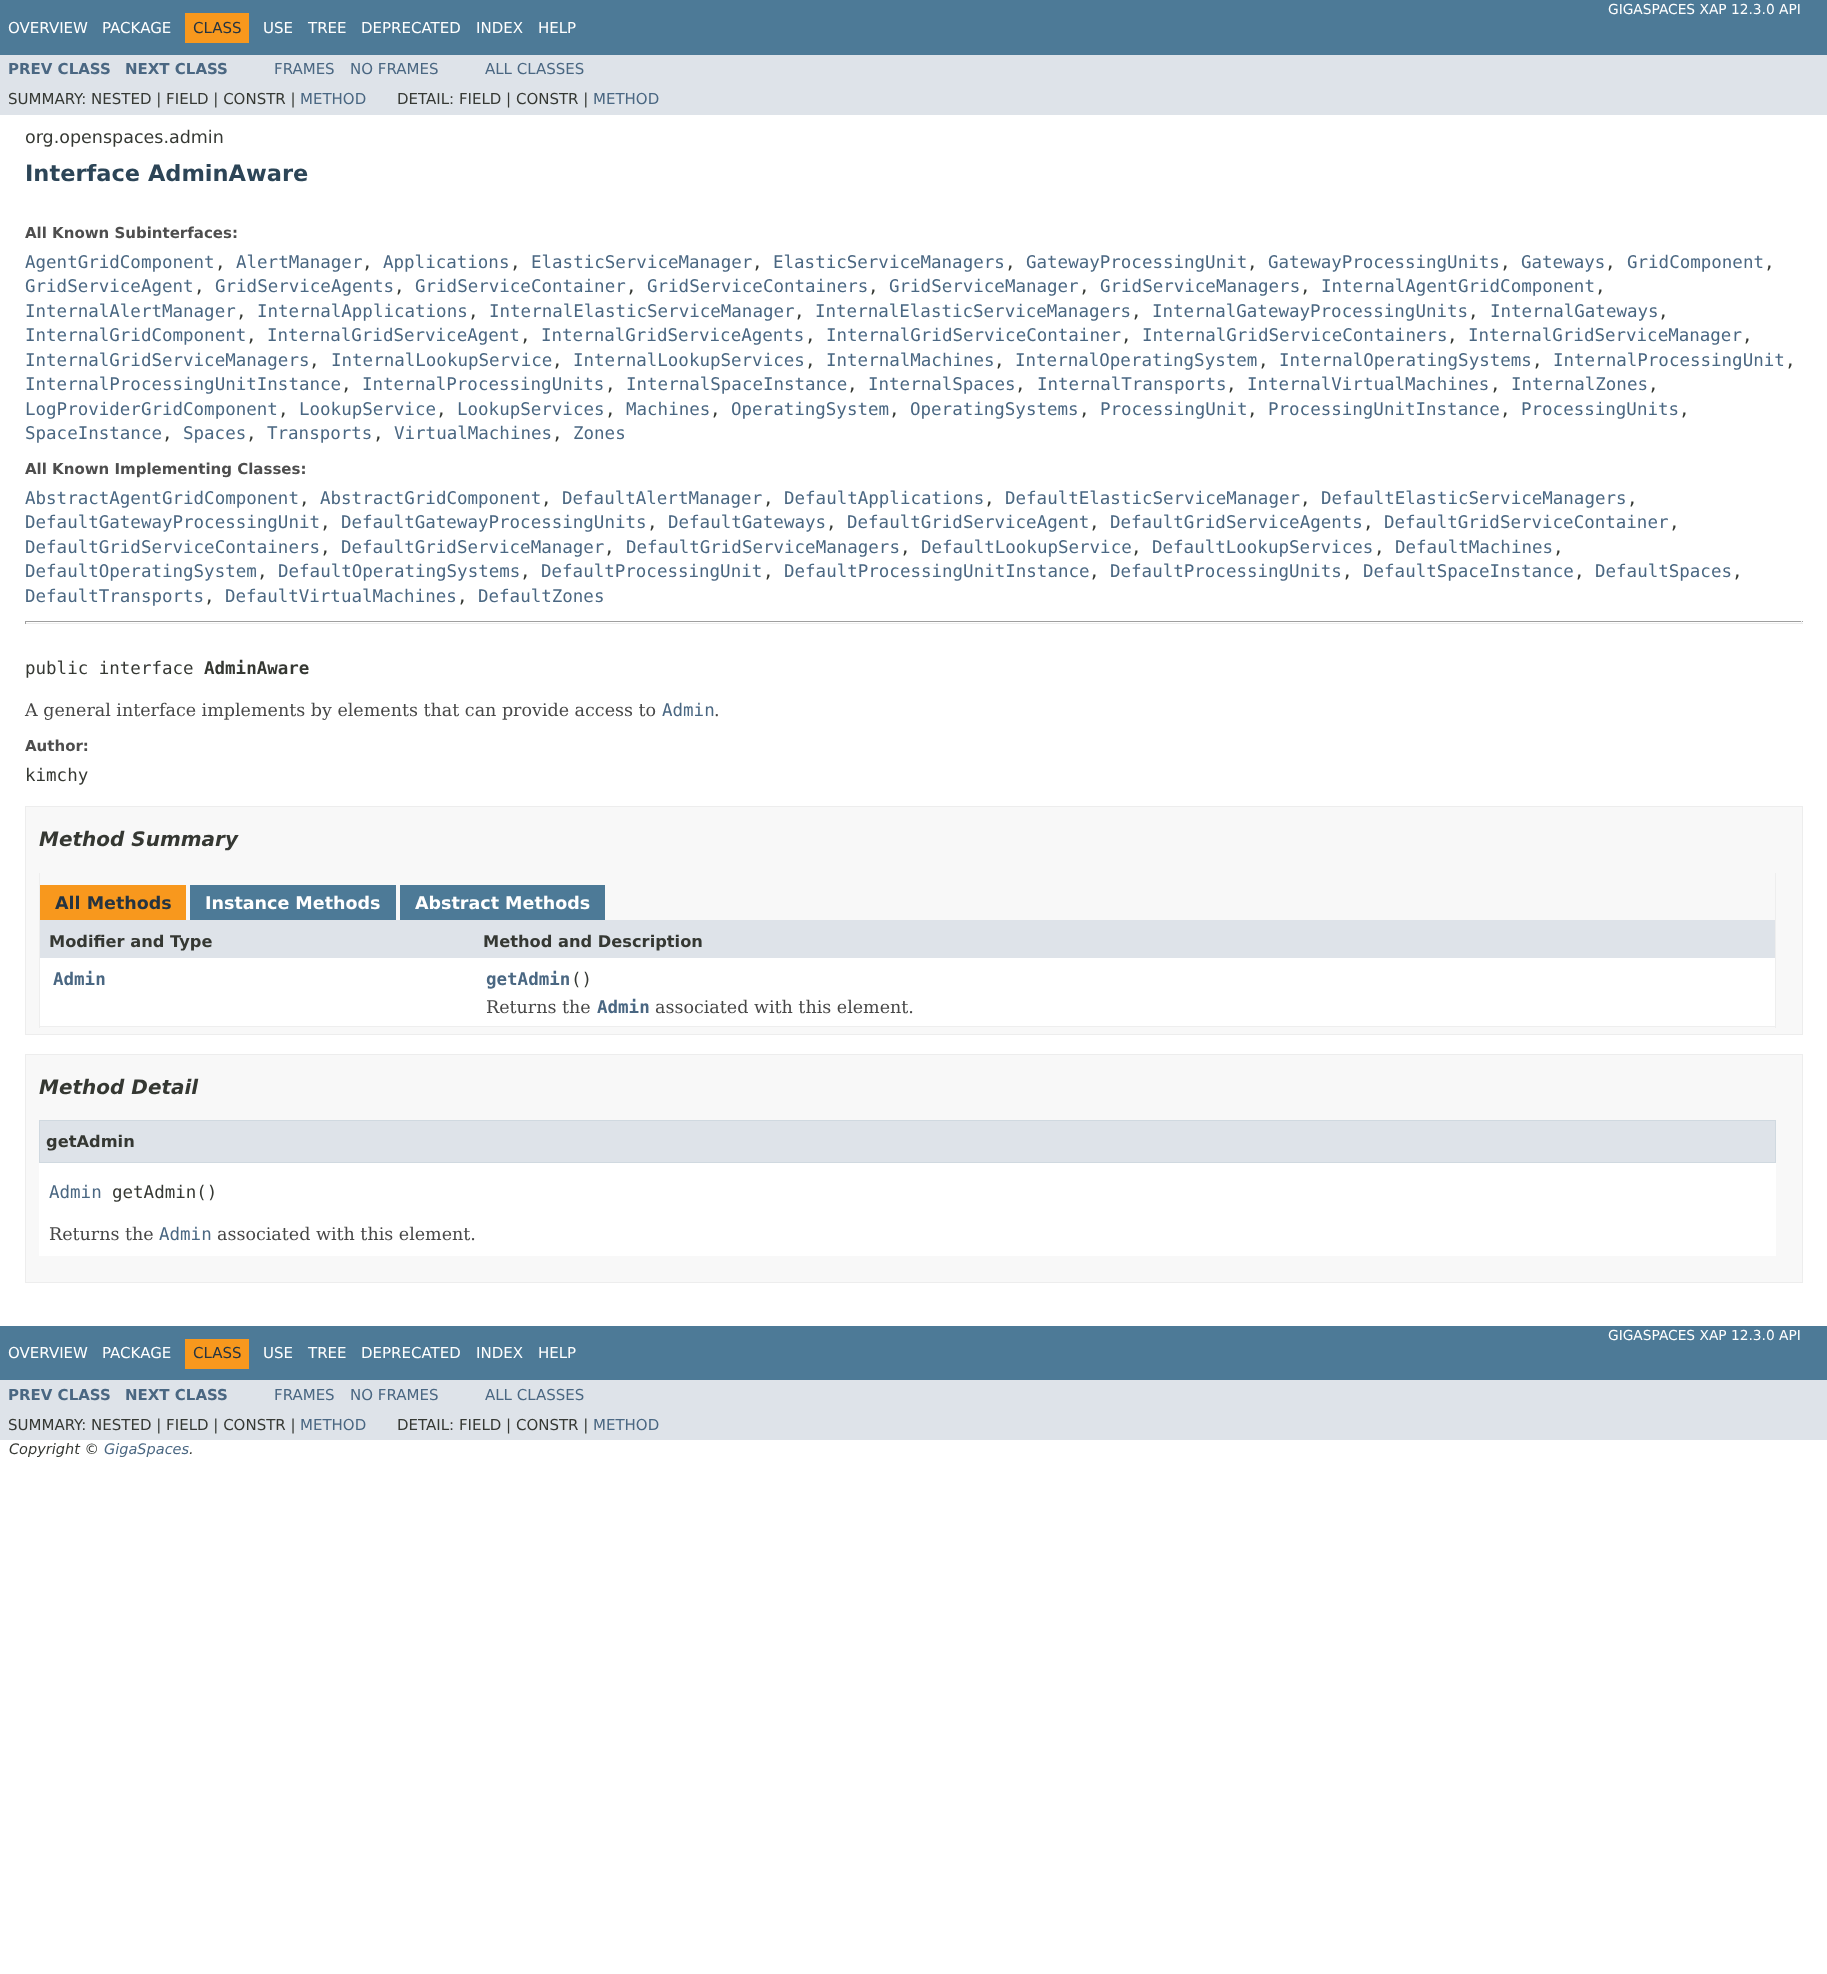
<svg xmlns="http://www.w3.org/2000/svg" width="1827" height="1974">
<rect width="100%" height="100%" fill="#fff"/>
<rect width="1827" height="55" fill="#4d7a97"/>
<text x="1608" y="14" style="font-family:DejaVu Sans;font-size:13.75px;fill:#fff">GIGASPACES XAP 12.3.0 API</text>
<text x="8" y="33" style="font-family:DejaVu Sans;font-size:15px;fill:#fff">OVERVIEW</text>
<text x="102" y="33" style="font-family:DejaVu Sans;font-size:15px;fill:#fff">PACKAGE</text>
<rect x="185" y="13" width="64" height="30" fill="#f8981d"/>
<text x="193" y="33" style="font-family:DejaVu Sans;font-size:15px;fill:#253441">CLASS</text>
<text x="263" y="33" style="font-family:DejaVu Sans;font-size:15px;fill:#fff">USE</text>
<text x="308" y="33" style="font-family:DejaVu Sans;font-size:15px;fill:#fff">TREE</text>
<text x="361" y="33" style="font-family:DejaVu Sans;font-size:15px;fill:#fff">DEPRECATED</text>
<text x="476" y="33" style="font-family:DejaVu Sans;font-size:15px;fill:#fff">INDEX</text>
<text x="538" y="33" style="font-family:DejaVu Sans;font-size:15px;fill:#fff">HELP</text>
<rect y="55" width="1827" height="60" fill="#dee3e9"/>
<text x="8" y="74" style="font-family:DejaVu Sans;font-size:15px;font-weight:bold;fill:#4a6782">PREV CLASS</text>
<text x="125" y="74" style="font-family:DejaVu Sans;font-size:15px;font-weight:bold;fill:#4a6782">NEXT CLASS</text>
<text x="274" y="74" style="font-family:DejaVu Sans;font-size:15px;fill:#4a6782">FRAMES</text>
<text x="350" y="74" style="font-family:DejaVu Sans;font-size:15px;fill:#4a6782">NO FRAMES</text>
<text x="485" y="74" style="font-family:DejaVu Sans;font-size:15px;fill:#4a6782">ALL CLASSES</text>
<text x="8" y="104" style="font-family:DejaVu Sans;font-size:15px;fill:#353833">SUMMARY: NESTED | FIELD | CONSTR |</text>
<text x="300" y="104" style="font-family:DejaVu Sans;font-size:15px;fill:#4a6782">METHOD</text>
<text x="397" y="104" style="font-family:DejaVu Sans;font-size:15px;fill:#353833">DETAIL: FIELD | CONSTR |</text>
<text x="593" y="104" style="font-family:DejaVu Sans;font-size:15px;fill:#4a6782">METHOD</text>
<text x="25" y="143" style="font-family:DejaVu Sans;font-size:17.5px;fill:#353833">org.openspaces.admin</text>
<text x="25" y="181" style="font-family:DejaVu Sans;font-size:22.5px;font-weight:bold;fill:#2c4557">Interface AdminAware</text>
<text x="25" y="238" style="font-family:DejaVu Sans;font-size:15px;font-weight:bold;fill:#4e4e4e">All Known Subinterfaces:</text>
<text x="25" y="268" style="font-family:DejaVu Sans Mono;font-size:17.5px;fill:#4a6782">AgentGridComponent</text>
<text x="215" y="268" style="font-family:DejaVu Sans Mono;font-size:17.5px;fill:#353833">,</text>
<text x="236" y="268" style="font-family:DejaVu Sans Mono;font-size:17.5px;fill:#4a6782">AlertManager</text>
<text x="362" y="268" style="font-family:DejaVu Sans Mono;font-size:17.5px;fill:#353833">,</text>
<text x="383" y="268" style="font-family:DejaVu Sans Mono;font-size:17.5px;fill:#4a6782">Applications</text>
<text x="510" y="268" style="font-family:DejaVu Sans Mono;font-size:17.5px;fill:#353833">,</text>
<text x="531" y="268" style="font-family:DejaVu Sans Mono;font-size:17.5px;fill:#4a6782">ElasticServiceManager</text>
<text x="752" y="268" style="font-family:DejaVu Sans Mono;font-size:17.5px;fill:#353833">,</text>
<text x="773" y="268" style="font-family:DejaVu Sans Mono;font-size:17.5px;fill:#4a6782">ElasticServiceManagers</text>
<text x="1005" y="268" style="font-family:DejaVu Sans Mono;font-size:17.5px;fill:#353833">,</text>
<text x="1026" y="268" style="font-family:DejaVu Sans Mono;font-size:17.5px;fill:#4a6782">GatewayProcessingUnit</text>
<text x="1247" y="268" style="font-family:DejaVu Sans Mono;font-size:17.5px;fill:#353833">,</text>
<text x="1268" y="268" style="font-family:DejaVu Sans Mono;font-size:17.5px;fill:#4a6782">GatewayProcessingUnits</text>
<text x="1500" y="268" style="font-family:DejaVu Sans Mono;font-size:17.5px;fill:#353833">,</text>
<text x="1521" y="268" style="font-family:DejaVu Sans Mono;font-size:17.5px;fill:#4a6782">Gateways</text>
<text x="1605" y="268" style="font-family:DejaVu Sans Mono;font-size:17.5px;fill:#353833">,</text>
<text x="1627" y="268" style="font-family:DejaVu Sans Mono;font-size:17.5px;fill:#4a6782">GridComponent</text>
<text x="1764" y="268" style="font-family:DejaVu Sans Mono;font-size:17.5px;fill:#353833">,</text>
<text x="25" y="292" style="font-family:DejaVu Sans Mono;font-size:17.5px;fill:#4a6782">GridServiceAgent</text>
<text x="194" y="292" style="font-family:DejaVu Sans Mono;font-size:17.5px;fill:#353833">,</text>
<text x="215" y="292" style="font-family:DejaVu Sans Mono;font-size:17.5px;fill:#4a6782">GridServiceAgents</text>
<text x="394" y="292" style="font-family:DejaVu Sans Mono;font-size:17.5px;fill:#353833">,</text>
<text x="415" y="292" style="font-family:DejaVu Sans Mono;font-size:17.5px;fill:#4a6782">GridServiceContainer</text>
<text x="626" y="292" style="font-family:DejaVu Sans Mono;font-size:17.5px;fill:#353833">,</text>
<text x="647" y="292" style="font-family:DejaVu Sans Mono;font-size:17.5px;fill:#4a6782">GridServiceContainers</text>
<text x="868" y="292" style="font-family:DejaVu Sans Mono;font-size:17.5px;fill:#353833">,</text>
<text x="889" y="292" style="font-family:DejaVu Sans Mono;font-size:17.5px;fill:#4a6782">GridServiceManager</text>
<text x="1079" y="292" style="font-family:DejaVu Sans Mono;font-size:17.5px;fill:#353833">,</text>
<text x="1100" y="292" style="font-family:DejaVu Sans Mono;font-size:17.5px;fill:#4a6782">GridServiceManagers</text>
<text x="1300" y="292" style="font-family:DejaVu Sans Mono;font-size:17.5px;fill:#353833">,</text>
<text x="1321" y="292" style="font-family:DejaVu Sans Mono;font-size:17.5px;fill:#4a6782">InternalAgentGridComponent</text>
<text x="1595" y="292" style="font-family:DejaVu Sans Mono;font-size:17.5px;fill:#353833">,</text>
<text x="25" y="317" style="font-family:DejaVu Sans Mono;font-size:17.5px;fill:#4a6782">InternalAlertManager</text>
<text x="236" y="317" style="font-family:DejaVu Sans Mono;font-size:17.5px;fill:#353833">,</text>
<text x="257" y="317" style="font-family:DejaVu Sans Mono;font-size:17.5px;fill:#4a6782">InternalApplications</text>
<text x="468" y="317" style="font-family:DejaVu Sans Mono;font-size:17.5px;fill:#353833">,</text>
<text x="489" y="317" style="font-family:DejaVu Sans Mono;font-size:17.5px;fill:#4a6782">InternalElasticServiceManager</text>
<text x="794" y="317" style="font-family:DejaVu Sans Mono;font-size:17.5px;fill:#353833">,</text>
<text x="815" y="317" style="font-family:DejaVu Sans Mono;font-size:17.5px;fill:#4a6782">InternalElasticServiceManagers</text>
<text x="1131" y="317" style="font-family:DejaVu Sans Mono;font-size:17.5px;fill:#353833">,</text>
<text x="1152" y="317" style="font-family:DejaVu Sans Mono;font-size:17.5px;fill:#4a6782">InternalGatewayProcessingUnits</text>
<text x="1468" y="317" style="font-family:DejaVu Sans Mono;font-size:17.5px;fill:#353833">,</text>
<text x="1490" y="317" style="font-family:DejaVu Sans Mono;font-size:17.5px;fill:#4a6782">InternalGateways</text>
<text x="1658" y="317" style="font-family:DejaVu Sans Mono;font-size:17.5px;fill:#353833">,</text>
<text x="25" y="341" style="font-family:DejaVu Sans Mono;font-size:17.5px;fill:#4a6782">InternalGridComponent</text>
<text x="246" y="341" style="font-family:DejaVu Sans Mono;font-size:17.5px;fill:#353833">,</text>
<text x="267" y="341" style="font-family:DejaVu Sans Mono;font-size:17.5px;fill:#4a6782">InternalGridServiceAgent</text>
<text x="520" y="341" style="font-family:DejaVu Sans Mono;font-size:17.5px;fill:#353833">,</text>
<text x="541" y="341" style="font-family:DejaVu Sans Mono;font-size:17.5px;fill:#4a6782">InternalGridServiceAgents</text>
<text x="805" y="341" style="font-family:DejaVu Sans Mono;font-size:17.5px;fill:#353833">,</text>
<text x="826" y="341" style="font-family:DejaVu Sans Mono;font-size:17.5px;fill:#4a6782">InternalGridServiceContainer</text>
<text x="1121" y="341" style="font-family:DejaVu Sans Mono;font-size:17.5px;fill:#353833">,</text>
<text x="1142" y="341" style="font-family:DejaVu Sans Mono;font-size:17.5px;fill:#4a6782">InternalGridServiceContainers</text>
<text x="1447" y="341" style="font-family:DejaVu Sans Mono;font-size:17.5px;fill:#353833">,</text>
<text x="1468" y="341" style="font-family:DejaVu Sans Mono;font-size:17.5px;fill:#4a6782">InternalGridServiceManager</text>
<text x="1742" y="341" style="font-family:DejaVu Sans Mono;font-size:17.5px;fill:#353833">,</text>
<text x="25" y="366" style="font-family:DejaVu Sans Mono;font-size:17.5px;fill:#4a6782">InternalGridServiceManagers</text>
<text x="309" y="366" style="font-family:DejaVu Sans Mono;font-size:17.5px;fill:#353833">,</text>
<text x="331" y="366" style="font-family:DejaVu Sans Mono;font-size:17.5px;fill:#4a6782">InternalLookupService</text>
<text x="552" y="366" style="font-family:DejaVu Sans Mono;font-size:17.5px;fill:#353833">,</text>
<text x="573" y="366" style="font-family:DejaVu Sans Mono;font-size:17.5px;fill:#4a6782">InternalLookupServices</text>
<text x="805" y="366" style="font-family:DejaVu Sans Mono;font-size:17.5px;fill:#353833">,</text>
<text x="826" y="366" style="font-family:DejaVu Sans Mono;font-size:17.5px;fill:#4a6782">InternalMachines</text>
<text x="994" y="366" style="font-family:DejaVu Sans Mono;font-size:17.5px;fill:#353833">,</text>
<text x="1015" y="366" style="font-family:DejaVu Sans Mono;font-size:17.5px;fill:#4a6782">InternalOperatingSystem</text>
<text x="1258" y="366" style="font-family:DejaVu Sans Mono;font-size:17.5px;fill:#353833">,</text>
<text x="1279" y="366" style="font-family:DejaVu Sans Mono;font-size:17.5px;fill:#4a6782">InternalOperatingSystems</text>
<text x="1532" y="366" style="font-family:DejaVu Sans Mono;font-size:17.5px;fill:#353833">,</text>
<text x="1553" y="366" style="font-family:DejaVu Sans Mono;font-size:17.5px;fill:#4a6782">InternalProcessingUnit</text>
<text x="1785" y="366" style="font-family:DejaVu Sans Mono;font-size:17.5px;fill:#353833">,</text>
<text x="25" y="390" style="font-family:DejaVu Sans Mono;font-size:17.5px;fill:#4a6782">InternalProcessingUnitInstance</text>
<text x="341" y="390" style="font-family:DejaVu Sans Mono;font-size:17.5px;fill:#353833">,</text>
<text x="362" y="390" style="font-family:DejaVu Sans Mono;font-size:17.5px;fill:#4a6782">InternalProcessingUnits</text>
<text x="605" y="390" style="font-family:DejaVu Sans Mono;font-size:17.5px;fill:#353833">,</text>
<text x="626" y="390" style="font-family:DejaVu Sans Mono;font-size:17.5px;fill:#4a6782">InternalSpaceInstance</text>
<text x="847" y="390" style="font-family:DejaVu Sans Mono;font-size:17.5px;fill:#353833">,</text>
<text x="868" y="390" style="font-family:DejaVu Sans Mono;font-size:17.5px;fill:#4a6782">InternalSpaces</text>
<text x="1015" y="390" style="font-family:DejaVu Sans Mono;font-size:17.5px;fill:#353833">,</text>
<text x="1037" y="390" style="font-family:DejaVu Sans Mono;font-size:17.5px;fill:#4a6782">InternalTransports</text>
<text x="1226" y="390" style="font-family:DejaVu Sans Mono;font-size:17.5px;fill:#353833">,</text>
<text x="1247" y="390" style="font-family:DejaVu Sans Mono;font-size:17.5px;fill:#4a6782">InternalVirtualMachines</text>
<text x="1490" y="390" style="font-family:DejaVu Sans Mono;font-size:17.5px;fill:#353833">,</text>
<text x="1511" y="390" style="font-family:DejaVu Sans Mono;font-size:17.5px;fill:#4a6782">InternalZones</text>
<text x="1648" y="390" style="font-family:DejaVu Sans Mono;font-size:17.5px;fill:#353833">,</text>
<text x="25" y="415" style="font-family:DejaVu Sans Mono;font-size:17.5px;fill:#4a6782">LogProviderGridComponent</text>
<text x="278" y="415" style="font-family:DejaVu Sans Mono;font-size:17.5px;fill:#353833">,</text>
<text x="299" y="415" style="font-family:DejaVu Sans Mono;font-size:17.5px;fill:#4a6782">LookupService</text>
<text x="436" y="415" style="font-family:DejaVu Sans Mono;font-size:17.5px;fill:#353833">,</text>
<text x="457" y="415" style="font-family:DejaVu Sans Mono;font-size:17.5px;fill:#4a6782">LookupServices</text>
<text x="605" y="415" style="font-family:DejaVu Sans Mono;font-size:17.5px;fill:#353833">,</text>
<text x="626" y="415" style="font-family:DejaVu Sans Mono;font-size:17.5px;fill:#4a6782">Machines</text>
<text x="710" y="415" style="font-family:DejaVu Sans Mono;font-size:17.5px;fill:#353833">,</text>
<text x="731" y="415" style="font-family:DejaVu Sans Mono;font-size:17.5px;fill:#4a6782">OperatingSystem</text>
<text x="889" y="415" style="font-family:DejaVu Sans Mono;font-size:17.5px;fill:#353833">,</text>
<text x="910" y="415" style="font-family:DejaVu Sans Mono;font-size:17.5px;fill:#4a6782">OperatingSystems</text>
<text x="1079" y="415" style="font-family:DejaVu Sans Mono;font-size:17.5px;fill:#353833">,</text>
<text x="1100" y="415" style="font-family:DejaVu Sans Mono;font-size:17.5px;fill:#4a6782">ProcessingUnit</text>
<text x="1247" y="415" style="font-family:DejaVu Sans Mono;font-size:17.5px;fill:#353833">,</text>
<text x="1268" y="415" style="font-family:DejaVu Sans Mono;font-size:17.5px;fill:#4a6782">ProcessingUnitInstance</text>
<text x="1500" y="415" style="font-family:DejaVu Sans Mono;font-size:17.5px;fill:#353833">,</text>
<text x="1521" y="415" style="font-family:DejaVu Sans Mono;font-size:17.5px;fill:#4a6782">ProcessingUnits</text>
<text x="1679" y="415" style="font-family:DejaVu Sans Mono;font-size:17.5px;fill:#353833">,</text>
<text x="25" y="439" style="font-family:DejaVu Sans Mono;font-size:17.5px;fill:#4a6782">SpaceInstance</text>
<text x="162" y="439" style="font-family:DejaVu Sans Mono;font-size:17.5px;fill:#353833">,</text>
<text x="183" y="439" style="font-family:DejaVu Sans Mono;font-size:17.5px;fill:#4a6782">Spaces</text>
<text x="246" y="439" style="font-family:DejaVu Sans Mono;font-size:17.5px;fill:#353833">,</text>
<text x="267" y="439" style="font-family:DejaVu Sans Mono;font-size:17.5px;fill:#4a6782">Transports</text>
<text x="373" y="439" style="font-family:DejaVu Sans Mono;font-size:17.5px;fill:#353833">,</text>
<text x="394" y="439" style="font-family:DejaVu Sans Mono;font-size:17.5px;fill:#4a6782">VirtualMachines</text>
<text x="552" y="439" style="font-family:DejaVu Sans Mono;font-size:17.5px;fill:#353833">,</text>
<text x="573" y="439" style="font-family:DejaVu Sans Mono;font-size:17.5px;fill:#4a6782">Zones</text>
<text x="25" y="474" style="font-family:DejaVu Sans;font-size:15px;font-weight:bold;fill:#4e4e4e">All Known Implementing Classes:</text>
<text x="25" y="504" style="font-family:DejaVu Sans Mono;font-size:17.5px;fill:#4a6782">AbstractAgentGridComponent</text>
<text x="299" y="504" style="font-family:DejaVu Sans Mono;font-size:17.5px;fill:#353833">,</text>
<text x="320" y="504" style="font-family:DejaVu Sans Mono;font-size:17.5px;fill:#4a6782">AbstractGridComponent</text>
<text x="541" y="504" style="font-family:DejaVu Sans Mono;font-size:17.5px;fill:#353833">,</text>
<text x="562" y="504" style="font-family:DejaVu Sans Mono;font-size:17.5px;fill:#4a6782">DefaultAlertManager</text>
<text x="763" y="504" style="font-family:DejaVu Sans Mono;font-size:17.5px;fill:#353833">,</text>
<text x="784" y="504" style="font-family:DejaVu Sans Mono;font-size:17.5px;fill:#4a6782">DefaultApplications</text>
<text x="984" y="504" style="font-family:DejaVu Sans Mono;font-size:17.5px;fill:#353833">,</text>
<text x="1005" y="504" style="font-family:DejaVu Sans Mono;font-size:17.5px;fill:#4a6782">DefaultElasticServiceManager</text>
<text x="1300" y="504" style="font-family:DejaVu Sans Mono;font-size:17.5px;fill:#353833">,</text>
<text x="1321" y="504" style="font-family:DejaVu Sans Mono;font-size:17.5px;fill:#4a6782">DefaultElasticServiceManagers</text>
<text x="1627" y="504" style="font-family:DejaVu Sans Mono;font-size:17.5px;fill:#353833">,</text>
<text x="25" y="528" style="font-family:DejaVu Sans Mono;font-size:17.5px;fill:#4a6782">DefaultGatewayProcessingUnit</text>
<text x="320" y="528" style="font-family:DejaVu Sans Mono;font-size:17.5px;fill:#353833">,</text>
<text x="341" y="528" style="font-family:DejaVu Sans Mono;font-size:17.5px;fill:#4a6782">DefaultGatewayProcessingUnits</text>
<text x="647" y="528" style="font-family:DejaVu Sans Mono;font-size:17.5px;fill:#353833">,</text>
<text x="668" y="528" style="font-family:DejaVu Sans Mono;font-size:17.5px;fill:#4a6782">DefaultGateways</text>
<text x="826" y="528" style="font-family:DejaVu Sans Mono;font-size:17.5px;fill:#353833">,</text>
<text x="847" y="528" style="font-family:DejaVu Sans Mono;font-size:17.5px;fill:#4a6782">DefaultGridServiceAgent</text>
<text x="1089" y="528" style="font-family:DejaVu Sans Mono;font-size:17.5px;fill:#353833">,</text>
<text x="1110" y="528" style="font-family:DejaVu Sans Mono;font-size:17.5px;fill:#4a6782">DefaultGridServiceAgents</text>
<text x="1363" y="528" style="font-family:DejaVu Sans Mono;font-size:17.5px;fill:#353833">,</text>
<text x="1384" y="528" style="font-family:DejaVu Sans Mono;font-size:17.5px;fill:#4a6782">DefaultGridServiceContainer</text>
<text x="1669" y="528" style="font-family:DejaVu Sans Mono;font-size:17.5px;fill:#353833">,</text>
<text x="25" y="553" style="font-family:DejaVu Sans Mono;font-size:17.5px;fill:#4a6782">DefaultGridServiceContainers</text>
<text x="320" y="553" style="font-family:DejaVu Sans Mono;font-size:17.5px;fill:#353833">,</text>
<text x="341" y="553" style="font-family:DejaVu Sans Mono;font-size:17.5px;fill:#4a6782">DefaultGridServiceManager</text>
<text x="604" y="553" style="font-family:DejaVu Sans Mono;font-size:17.5px;fill:#353833">,</text>
<text x="626" y="553" style="font-family:DejaVu Sans Mono;font-size:17.5px;fill:#4a6782">DefaultGridServiceManagers</text>
<text x="900" y="553" style="font-family:DejaVu Sans Mono;font-size:17.5px;fill:#353833">,</text>
<text x="921" y="553" style="font-family:DejaVu Sans Mono;font-size:17.5px;fill:#4a6782">DefaultLookupService</text>
<text x="1131" y="553" style="font-family:DejaVu Sans Mono;font-size:17.5px;fill:#353833">,</text>
<text x="1152" y="553" style="font-family:DejaVu Sans Mono;font-size:17.5px;fill:#4a6782">DefaultLookupServices</text>
<text x="1374" y="553" style="font-family:DejaVu Sans Mono;font-size:17.5px;fill:#353833">,</text>
<text x="1395" y="553" style="font-family:DejaVu Sans Mono;font-size:17.5px;fill:#4a6782">DefaultMachines</text>
<text x="1553" y="553" style="font-family:DejaVu Sans Mono;font-size:17.5px;fill:#353833">,</text>
<text x="25" y="577" style="font-family:DejaVu Sans Mono;font-size:17.5px;fill:#4a6782">DefaultOperatingSystem</text>
<text x="257" y="577" style="font-family:DejaVu Sans Mono;font-size:17.5px;fill:#353833">,</text>
<text x="278" y="577" style="font-family:DejaVu Sans Mono;font-size:17.5px;fill:#4a6782">DefaultOperatingSystems</text>
<text x="520" y="577" style="font-family:DejaVu Sans Mono;font-size:17.5px;fill:#353833">,</text>
<text x="541" y="577" style="font-family:DejaVu Sans Mono;font-size:17.5px;fill:#4a6782">DefaultProcessingUnit</text>
<text x="763" y="577" style="font-family:DejaVu Sans Mono;font-size:17.5px;fill:#353833">,</text>
<text x="784" y="577" style="font-family:DejaVu Sans Mono;font-size:17.5px;fill:#4a6782">DefaultProcessingUnitInstance</text>
<text x="1089" y="577" style="font-family:DejaVu Sans Mono;font-size:17.5px;fill:#353833">,</text>
<text x="1110" y="577" style="font-family:DejaVu Sans Mono;font-size:17.5px;fill:#4a6782">DefaultProcessingUnits</text>
<text x="1342" y="577" style="font-family:DejaVu Sans Mono;font-size:17.5px;fill:#353833">,</text>
<text x="1363" y="577" style="font-family:DejaVu Sans Mono;font-size:17.5px;fill:#4a6782">DefaultSpaceInstance</text>
<text x="1574" y="577" style="font-family:DejaVu Sans Mono;font-size:17.5px;fill:#353833">,</text>
<text x="1595" y="577" style="font-family:DejaVu Sans Mono;font-size:17.5px;fill:#4a6782">DefaultSpaces</text>
<text x="1732" y="577" style="font-family:DejaVu Sans Mono;font-size:17.5px;fill:#353833">,</text>
<text x="25" y="602" style="font-family:DejaVu Sans Mono;font-size:17.5px;fill:#4a6782">DefaultTransports</text>
<text x="204" y="602" style="font-family:DejaVu Sans Mono;font-size:17.5px;fill:#353833">,</text>
<text x="225" y="602" style="font-family:DejaVu Sans Mono;font-size:17.5px;fill:#4a6782">DefaultVirtualMachines</text>
<text x="457" y="602" style="font-family:DejaVu Sans Mono;font-size:17.5px;fill:#353833">,</text>
<text x="478" y="602" style="font-family:DejaVu Sans Mono;font-size:17.5px;fill:#4a6782">DefaultZones</text>
<rect x="25" y="621" width="1778" height="1" fill="#9f9f9f"/>
<rect x="1801" y="621" width="1" height="3" fill="#eee"/>
<rect x="25" y="623" width="1778" height="1" fill="#eee"/>
<rect x="25" y="621" width="1" height="3" fill="#9f9f9f"/>
<text x="25" y="674" style="font-family:DejaVu Sans Mono;font-size:17.5px;fill:#353833">public interface</text>
<text x="204" y="674" style="font-family:DejaVu Sans Mono;font-size:17.5px;font-weight:bold;fill:#353833">AdminAware</text>
<text x="25" y="716" style="font-family:DejaVu Serif;font-size:17.5px;fill:#474747">A general interface implements by elements that can provide access to</text>
<text x="662" y="716" style="font-family:DejaVu Sans Mono;font-size:17.5px;fill:#4a6782">Admin</text>
<text x="714" y="716" style="font-family:DejaVu Serif;font-size:17.5px;fill:#474747">.</text>
<text x="25" y="751" style="font-family:DejaVu Sans;font-size:15px;font-weight:bold;fill:#4e4e4e">Author:</text>
<text x="25" y="781" style="font-family:DejaVu Sans Mono;font-size:17.5px;fill:#353833">kimchy</text>
<rect x="25.5" y="806.5" width="1777" height="228" fill="#f8f8f8" stroke="#ededed"/>
<text x="39" y="846" style="font-family:DejaVu Sans;font-size:20px;font-weight:bold;font-style:italic;fill:#353833">Method Summary</text>
<rect x="1775" y="873" width="1" height="155" fill="#eee"/>
<rect x="39" y="1026" width="1737" height="1" fill="#eee"/>
<rect x="39" y="873" width="1" height="155" fill="#eee"/>
<rect x="40" y="885" width="146" height="35" fill="#f8981d"/>
<text x="55" y="909" style="font-family:DejaVu Sans;font-size:17.5px;font-weight:bold;fill:#253441">All Methods</text>
<rect x="190" y="885" width="206" height="35" fill="#4d7a97"/>
<text x="205" y="909" style="font-family:DejaVu Sans;font-size:17.5px;font-weight:bold;fill:#fff">Instance Methods</text>
<rect x="400" y="885" width="205" height="35" fill="#4d7a97"/>
<text x="415" y="909" style="font-family:DejaVu Sans;font-size:17.5px;font-weight:bold;fill:#fff">Abstract Methods</text>
<rect x="40" y="920" width="1735" height="38" fill="#dee3e9"/>
<text x="49" y="947" style="font-family:DejaVu Sans;font-size:16.25px;font-weight:bold;fill:#353833">Modifier and Type</text>
<text x="483" y="947" style="font-family:DejaVu Sans;font-size:16.25px;font-weight:bold;fill:#353833">Method and Description</text>
<rect x="40" y="958" width="1735" height="68" fill="#fff"/>
<text x="53" y="985" style="font-family:DejaVu Sans Mono;font-size:17.5px;font-weight:bold;fill:#4a6782">Admin</text>
<text x="486" y="985" style="font-family:DejaVu Sans Mono;font-size:17.5px;font-weight:bold;fill:#4a6782">getAdmin</text>
<text x="571" y="985" style="font-family:DejaVu Sans Mono;font-size:17.5px;fill:#353833">()</text>
<text x="486" y="1013" style="font-family:DejaVu Serif;font-size:17.5px;fill:#474747">Returns the</text>
<text x="597" y="1013" style="font-family:DejaVu Sans Mono;font-size:17.5px;font-weight:bold;fill:#4a6782">Admin</text>
<text x="655" y="1013" style="font-family:DejaVu Serif;font-size:17.5px;fill:#474747">associated with this element.</text>
<rect x="25.5" y="1054.5" width="1777" height="228" fill="#f8f8f8" stroke="#ededed"/>
<text x="39" y="1094" style="font-family:DejaVu Sans;font-size:20px;font-weight:bold;font-style:italic;fill:#353833">Method Detail</text>
<rect x="39" y="1163" width="1737" height="93" fill="#fff"/>
<rect x="39.5" y="1120.5" width="1736" height="42" fill="#dee3e9" stroke="#d0d9e0"/>
<text x="46" y="1147" style="font-family:DejaVu Sans;font-size:16.25px;font-weight:bold;fill:#353833">getAdmin</text>
<text x="49" y="1198" style="font-family:DejaVu Sans Mono;font-size:17.5px;fill:#4a6782">Admin</text>
<text x="112" y="1198" style="font-family:DejaVu Sans Mono;font-size:17.5px;fill:#353833">getAdmin()</text>
<text x="49" y="1240" style="font-family:DejaVu Serif;font-size:17.5px;fill:#474747">Returns the</text>
<text x="159" y="1240" style="font-family:DejaVu Sans Mono;font-size:17.5px;fill:#4a6782">Admin</text>
<text x="217" y="1240" style="font-family:DejaVu Serif;font-size:17.5px;fill:#474747">associated with this element.</text>
<rect y="1326" width="1827" height="54" fill="#4d7a97"/>
<text x="1608" y="1340" style="font-family:DejaVu Sans;font-size:13.75px;fill:#fff">GIGASPACES XAP 12.3.0 API</text>
<text x="8" y="1358" style="font-family:DejaVu Sans;font-size:15px;fill:#fff">OVERVIEW</text>
<text x="102" y="1358" style="font-family:DejaVu Sans;font-size:15px;fill:#fff">PACKAGE</text>
<rect x="185" y="1339" width="64" height="30" fill="#f8981d"/>
<text x="193" y="1358" style="font-family:DejaVu Sans;font-size:15px;fill:#253441">CLASS</text>
<text x="263" y="1358" style="font-family:DejaVu Sans;font-size:15px;fill:#fff">USE</text>
<text x="308" y="1358" style="font-family:DejaVu Sans;font-size:15px;fill:#fff">TREE</text>
<text x="361" y="1358" style="font-family:DejaVu Sans;font-size:15px;fill:#fff">DEPRECATED</text>
<text x="476" y="1358" style="font-family:DejaVu Sans;font-size:15px;fill:#fff">INDEX</text>
<text x="538" y="1358" style="font-family:DejaVu Sans;font-size:15px;fill:#fff">HELP</text>
<rect y="1380" width="1827" height="60" fill="#dee3e9"/>
<text x="8" y="1400" style="font-family:DejaVu Sans;font-size:15px;font-weight:bold;fill:#4a6782">PREV CLASS</text>
<text x="125" y="1400" style="font-family:DejaVu Sans;font-size:15px;font-weight:bold;fill:#4a6782">NEXT CLASS</text>
<text x="274" y="1400" style="font-family:DejaVu Sans;font-size:15px;fill:#4a6782">FRAMES</text>
<text x="350" y="1400" style="font-family:DejaVu Sans;font-size:15px;fill:#4a6782">NO FRAMES</text>
<text x="485" y="1400" style="font-family:DejaVu Sans;font-size:15px;fill:#4a6782">ALL CLASSES</text>
<text x="8" y="1430" style="font-family:DejaVu Sans;font-size:15px;fill:#353833">SUMMARY: NESTED | FIELD | CONSTR |</text>
<text x="300" y="1430" style="font-family:DejaVu Sans;font-size:15px;fill:#4a6782">METHOD</text>
<text x="397" y="1430" style="font-family:DejaVu Sans;font-size:15px;fill:#353833">DETAIL: FIELD | CONSTR |</text>
<text x="593" y="1430" style="font-family:DejaVu Sans;font-size:15px;fill:#4a6782">METHOD</text>
<text x="9" y="1454" style="font-family:DejaVu Sans;font-size:14.5px;font-style:italic;fill:#353833">Copyright ©</text>
<text x="104" y="1454" style="font-family:DejaVu Sans;font-size:14.5px;font-style:italic;fill:#4a6782">GigaSpaces</text>
<text x="189" y="1454" style="font-family:DejaVu Sans;font-size:14.5px;font-style:italic;fill:#353833">.</text>
</svg>
